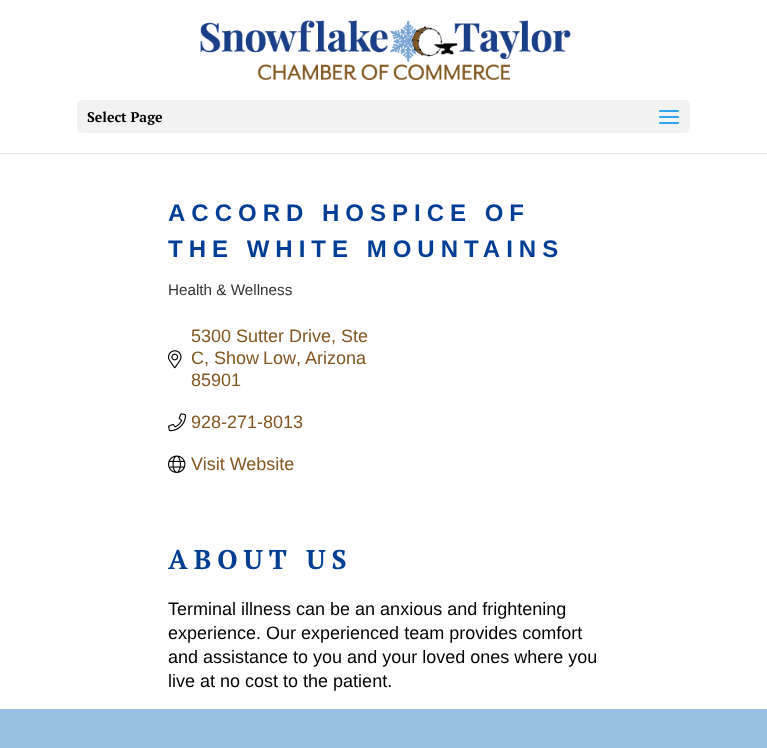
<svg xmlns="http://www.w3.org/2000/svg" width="767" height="748">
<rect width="100%" height="100%" fill="#fff"/>
<rect y="153" width="767" height="1" fill="#e6e6e6"/>
<image x="200" y="20" width="371" height="60" href="media/1.png"/>
<rect x="77" y="100" width="613" height="33" rx="5" fill="#f2f2f2"/>
<text x="87" y="122" style="font-family:PT Serif;font-size:14px;font-weight:bold;fill:#000">Select Page</text>
<image x="659" y="110" width="20" height="14" href="media/2.png"/>
<text x="168" y="221" style="font-family:Liberation Sans;font-size:24px;font-weight:bold;letter-spacing:6px;fill:#003e96">ACCORD HOSPICE OF</text>
<text x="168" y="257" style="font-family:Liberation Sans;font-size:24px;font-weight:bold;letter-spacing:6px;fill:#003e96">THE WHITE MOUNTAINS</text>
<text x="168" y="295" style="font-family:Liberation Sans;font-size:15.25px;fill:#333">Health &amp; Wellness</text>
<text x="191" y="342" style="font-family:Liberation Sans;font-size:18px;fill:#835622">5300 Sutter Drive, Ste</text>
<image x="168" y="350" width="14" height="19" href="media/3.png"/>
<text x="191" y="364" style="font-family:Liberation Sans;font-size:18px;fill:#835622">C,</text>
<text x="214" y="364" word-spacing="-1" style="font-family:Liberation Sans;font-size:18px;fill:#835622">Show Low</text>
<text x="296" y="364" style="font-family:Liberation Sans;font-size:18px;fill:#835622">,</text>
<text x="305" y="364" style="font-family:Liberation Sans;font-size:18px;fill:#835622">Arizona</text>
<text x="191" y="386" style="font-family:Liberation Sans;font-size:18px;fill:#835622">85901</text>
<image x="168" y="413" width="18" height="19" href="media/4.png"/>
<text x="191" y="428" style="font-family:Liberation Sans;font-size:18px;fill:#835622">928-271-8013</text>
<image x="168" y="455" width="18" height="18" href="media/5.png"/>
<text x="191" y="470" style="font-family:Liberation Sans;font-size:18px;fill:#835622">Visit Website</text>
<text x="168" y="569" style="font-family:PT Serif;font-size:27px;font-weight:bold;letter-spacing:6px;fill:#003e96">ABOUT US</text>
<text x="168" y="615" style="font-family:Liberation Sans;font-size:18px;fill:#000">Terminal illness can be an anxious and frightening</text>
<text x="168" y="639" style="font-family:Liberation Sans;font-size:18px;fill:#000">experience. Our experienced team provides comfort</text>
<text x="168" y="663" style="font-family:Liberation Sans;font-size:18px;fill:#000">and assistance to you and your loved ones where you</text>
<text x="168" y="687" style="font-family:Liberation Sans;font-size:18px;fill:#000">live at no cost to the patient.</text>
<rect y="709" width="767" height="39" fill="#99bfe5"/>
</svg>
